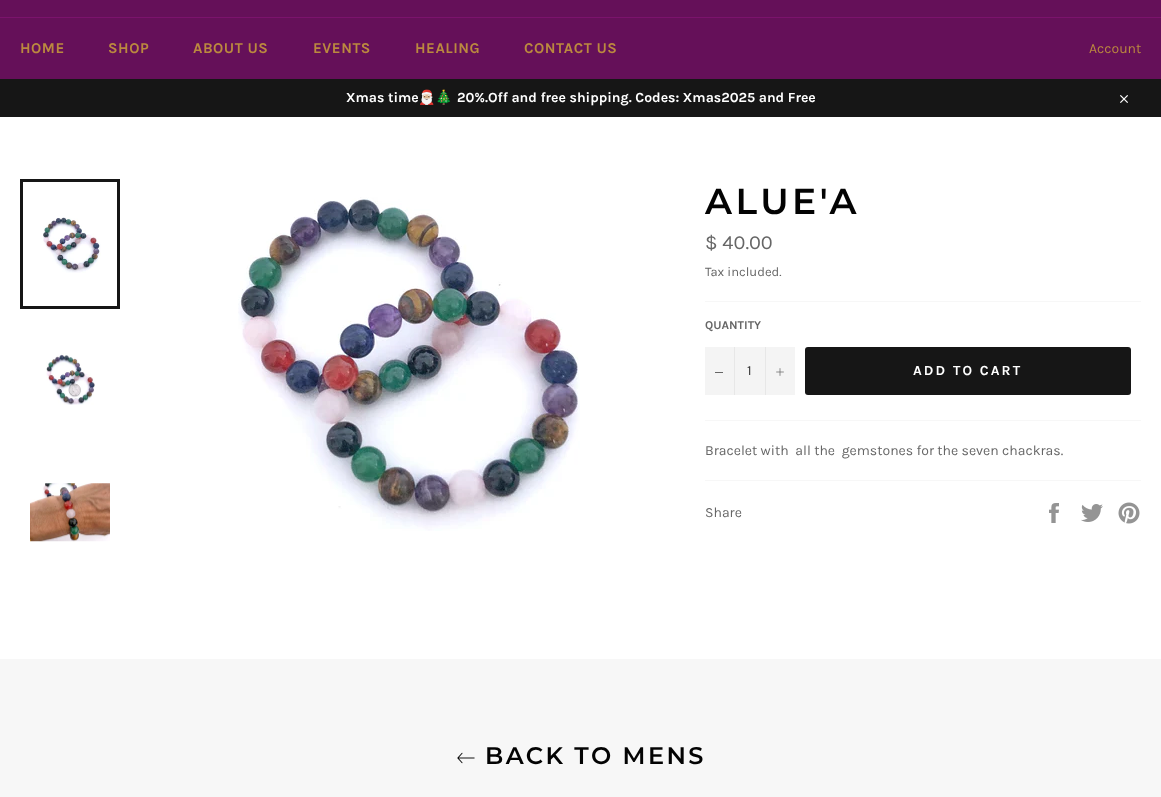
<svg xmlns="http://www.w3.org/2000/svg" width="1161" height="797">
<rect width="100%" height="100%" fill="#651059"/>
<rect y="17" width="1161" height="1" fill="#7b136c"/>
<text x="20" y="53" style="font-family:Karla;font-size:15px;font-weight:bold;letter-spacing:0.5px;fill:#bb893f">HOME</text>
<text x="108" y="53" style="font-family:Karla;font-size:15px;font-weight:bold;letter-spacing:0.5px;fill:#bb893f">SHOP</text>
<text x="193" y="53" style="font-family:Karla;font-size:15px;font-weight:bold;letter-spacing:0.5px;fill:#bb893f">ABOUT US</text>
<text x="313" y="53" style="font-family:Karla;font-size:15px;font-weight:bold;letter-spacing:0.5px;fill:#bb893f">EVENTS</text>
<text x="415" y="53" style="font-family:Karla;font-size:15px;font-weight:bold;letter-spacing:0.5px;fill:#bb893f">HEALING</text>
<text x="524" y="53" style="font-family:Karla;font-size:15px;font-weight:bold;letter-spacing:0.5px;fill:#bb893f">CONTACT US</text>
<text x="1089" y="53" style="font-family:Karla;font-size:14px;fill:#bb893f">Account</text>
<rect y="79" width="1161" height="38" fill="#161616"/>
<text x="346" y="102" style="font-family:Karla;font-size:14px;font-weight:bold;fill:#fff">Xmas time</text>
<text x="418" y="102" style="font-family:Noto Color Emoji;font-size:14px;font-weight:bold;fill:#fff">🎅🏼🎄</text>
<text x="457" y="102" style="font-family:Karla;font-size:14px;font-weight:bold;fill:#fff">20%.Off and free shipping. Codes: Xmas2025 and Free</text>
<image x="1120" y="95" width="8" height="8" href="media/1.png"/>
<rect y="117" width="1161" height="542" fill="#fff"/>
<image x="43" y="217" width="58" height="56" href="media/2.png"/>
<rect x="21.5" y="180.5" width="97" height="127" fill="none" stroke="#161616" stroke-width="3"/>
<image x="46" y="353" width="49" height="52" href="media/3.png"/>
<image x="30" y="483" width="80" height="59" href="media/4.png"/>
<image x="238" y="197" width="342" height="334" href="media/5.png"/>
<text x="705" y="214" style="font-family:Montserrat;font-size:36px;font-weight:600;letter-spacing:3.5px;fill:#030303">ALUE'A</text>
<text x="705" y="249" style="font-family:Karla;font-size:20px;fill:#666">$ 40.00</text>
<text x="705" y="276" style="font-family:Karla;font-size:13px;fill:#666">Tax included.</text>
<rect x="705" y="301" width="436" height="1" fill="#f7f7f7"/>
<text x="705" y="329" style="font-family:Karla;font-size:12px;font-weight:bold;fill:#666">QUANTITY</text>
<rect x="705" y="347" width="90" height="48" fill="#f4f4f4"/>
<rect x="734" y="347" width="1" height="48" fill="#e7e7e7"/>
<rect x="715" y="372" width="8" height="1" fill="#666"/>
<text x="747" y="375" style="font-family:Karla;font-size:14px;fill:#333">1</text>
<rect x="765" y="347" width="1" height="48" fill="#e7e7e7"/>
<image x="776" y="368" width="8" height="8" href="media/6.png"/>
<rect x="805" y="347" width="326" height="48" rx="3" fill="#161616"/>
<text x="913" y="375" style="font-family:Karla;font-size:14px;font-weight:bold;letter-spacing:2.1px;fill:#fff">ADD TO CART</text>
<rect x="705" y="420" width="436" height="1" fill="#f7f7f7"/>
<text x="705" y="455" style="font-family:Karla;font-size:14px;fill:#666" xml:space="preserve">Bracelet with  all the  gemstones for the seven chackras.</text>
<rect x="705" y="480" width="436" height="1" fill="#f7f7f7"/>
<text x="705" y="517" style="font-family:Karla;font-size:14px;fill:#666">Share</text>
<image x="1049" y="503" width="10" height="20" href="media/7.png"/>
<image x="1081" y="504" width="22" height="18" href="media/8.png"/>
<image x="1118" y="502" width="22" height="22" href="media/9.png"/>
<rect y="659" width="1161" height="138" fill="#f7f7f7"/>
<image x="457" y="752" width="18" height="12" href="media/10.png"/>
<text x="485" y="764" style="font-family:Montserrat;font-size:24px;font-weight:600;letter-spacing:2.4px;fill:#030303">BACK TO MENS</text>
</svg>
